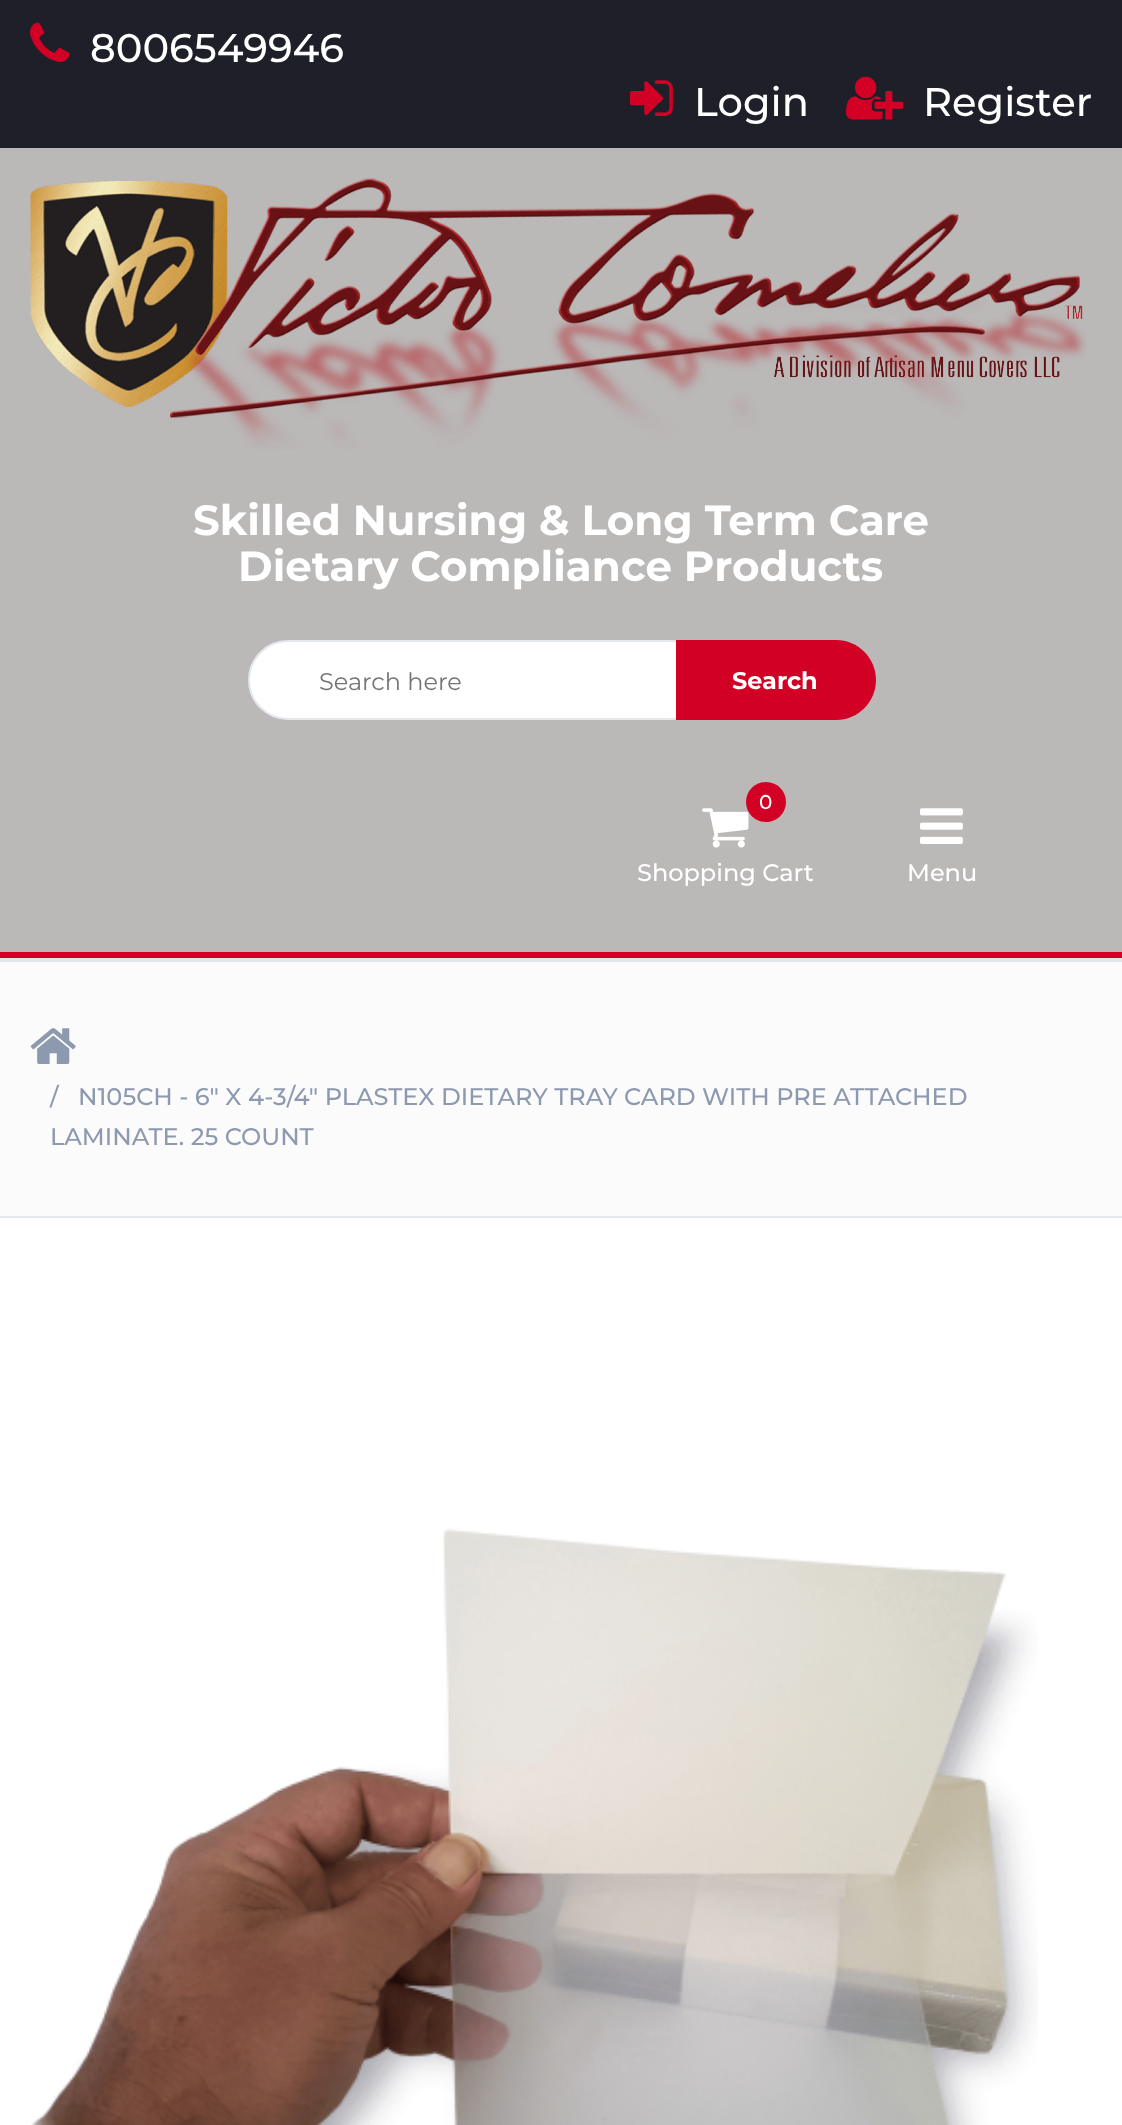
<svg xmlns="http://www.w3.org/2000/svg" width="1122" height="2125">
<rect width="100%" height="100%" fill="#fff"/>
<rect width="1122" height="148" fill="#1e1f29"/>
<image x="30" y="22" width="40" height="40" href="media/1.png"/>
<text x="90" y="62" style="font-family:Montserrat;font-size:40px;font-weight:500;fill:#fff">8006549946</text>
<image x="630" y="80" width="43" height="36" href="media/2.png"/>
<text x="694" y="116" style="font-family:Montserrat;font-size:40px;font-weight:500;fill:#fff">Login</text>
<image x="846" y="76" width="58" height="44" href="media/3.png"/>
<text x="923" y="116" style="font-family:Montserrat;font-size:40px;font-weight:500;fill:#fff">Register</text>
<rect y="148" width="1122" height="804" fill="#bbb8b8"/>
<image x="30" y="178" width="1057" height="271" href="media/4.png"/>
<text x="193" y="535" style="font-family:Montserrat;font-size:42px;font-weight:bold;fill:#fff">Skilled Nursing &amp; Long Term Care</text>
<text x="238" y="581" style="font-family:Montserrat;font-size:42px;font-weight:bold;fill:#fff">Dietary Compliance Products</text>
<path d="M288 641h395v78h-395c-21.5 0-39-17.5-39-39c0-21.5 17.5-39 39-39z" fill="#fff" stroke="#e4e7ed" stroke-width="2"/>
<text x="319" y="690" style="font-family:Montserrat;font-size:24px;fill:#757575">Search here</text>
<path d="M676 640h160c22 0 40 18 40 40c0 22-18 40-40 40h-160z" fill="#d10024"/>
<text x="732" y="689" style="font-family:Montserrat;font-size:24px;font-weight:bold;fill:#fff">Search</text>
<image x="702" y="808" width="47" height="40" href="media/5.png"/>
<circle cx="766" cy="802" r="20" fill="#d10024"/>
<text x="759" y="809" style="font-family:Montserrat;font-size:20px;font-weight:500;fill:#fff">0</text>
<text x="637" y="881" style="font-family:Montserrat;font-size:24px;font-weight:500;fill:#fff">Shopping Cart</text>
<image x="920" y="808" width="43" height="36" href="media/6.png"/>
<text x="907" y="881" style="font-family:Montserrat;font-size:24px;font-weight:500;fill:#fff">Menu</text>
<rect y="952" width="1122" height="6" fill="#d10024"/>
<rect y="958" width="1122" height="4" fill="#e4e7ed"/>
<rect y="962" width="1122" height="254" fill="#fbfbfc"/>
<rect y="1216" width="1122" height="2" fill="#e4e7ed"/>
<image x="30" y="1028" width="46" height="36" href="media/7.png"/>
<text x="50" y="1105" style="font-family:Montserrat;font-size:24px;font-weight:500;fill:#8d99ae">/</text>
<text x="78" y="1105" style="font-family:Montserrat;font-size:24px;font-weight:500;fill:#8d99ae">N105CH - 6" X 4-3/4" PLASTEX DIETARY TRAY CARD WITH PRE ATTACHED</text>
<text x="50" y="1145" style="font-family:Montserrat;font-size:24px;font-weight:500;fill:#8d99ae">LAMINATE. 25 COUNT</text>
<image x="31" y="1528" width="1007" height="597" href="media/8.png"/>
</svg>
